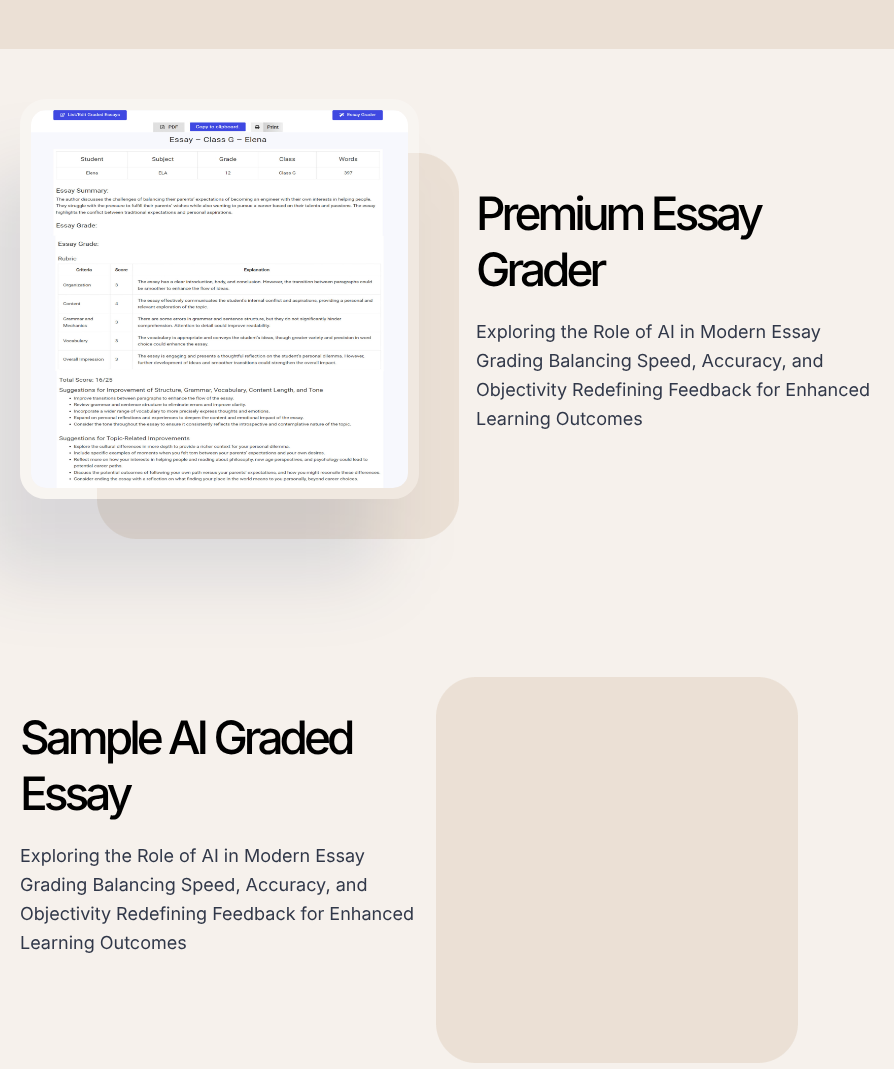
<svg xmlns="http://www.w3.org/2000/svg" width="894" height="1069">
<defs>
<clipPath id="clip1"><path d="M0 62h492v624h-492zm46 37h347c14.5 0 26 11.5 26 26v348c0 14.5-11.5 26-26 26h-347c-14.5 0-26-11.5-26-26v-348c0-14.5 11.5-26 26-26z" clip-rule="evenodd"/></clipPath>
</defs>
<rect width="100%" height="100%" fill="#ebe0d5"/>
<rect y="49" width="894" height="1020" fill="#f6f1ec"/>
<image x="97" y="153" width="362" height="386" href="media/2.png"/>
<image x="436" y="677" width="362" height="386" href="media/2.png"/>
<g clip-path="url(#clip1)">
<rect x="-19" y="174" width="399" height="400" rx="26" fill="#192f5f21" filter="blur(37px)"/>
</g>
<rect x="25.5" y="104.5" width="388" height="389" rx="20.5" fill="none" stroke="#ffffff47" stroke-width="11"/>
<image x="31" y="110" width="377" height="378" href="media/1.png"/>
<text x="476" y="230" style="font-family:Inter;font-size:46px;font-weight:500;letter-spacing:-4px;fill:#000">Premium Essay</text>
<text x="476" y="286" style="font-family:Inter;font-size:46px;font-weight:500;letter-spacing:-4px;fill:#000">Grader</text>
<text x="476" y="338" style="font-family:Inter;font-size:18px;fill:#313849">Exploring the Role of AI in Modern Essay</text>
<text x="476" y="367" style="font-family:Inter;font-size:18px;fill:#313849">Grading Balancing Speed, Accuracy, and</text>
<text x="476" y="396" style="font-family:Inter;font-size:18px;fill:#313849">Objectivity Redefining Feedback for Enhanced</text>
<text x="476" y="425" style="font-family:Inter;font-size:18px;fill:#313849">Learning Outcomes</text>
<text x="20" y="754" style="font-family:Inter;font-size:46px;font-weight:500;letter-spacing:-4px;fill:#000">Sample AI Graded</text>
<text x="20" y="810" style="font-family:Inter;font-size:46px;font-weight:500;letter-spacing:-4px;fill:#000">Essay</text>
<text x="20" y="862" style="font-family:Inter;font-size:18px;fill:#313849">Exploring the Role of AI in Modern Essay</text>
<text x="20" y="891" style="font-family:Inter;font-size:18px;fill:#313849">Grading Balancing Speed, Accuracy, and</text>
<text x="20" y="920" style="font-family:Inter;font-size:18px;fill:#313849">Objectivity Redefining Feedback for Enhanced</text>
<text x="20" y="949" style="font-family:Inter;font-size:18px;fill:#313849">Learning Outcomes</text>
</svg>
